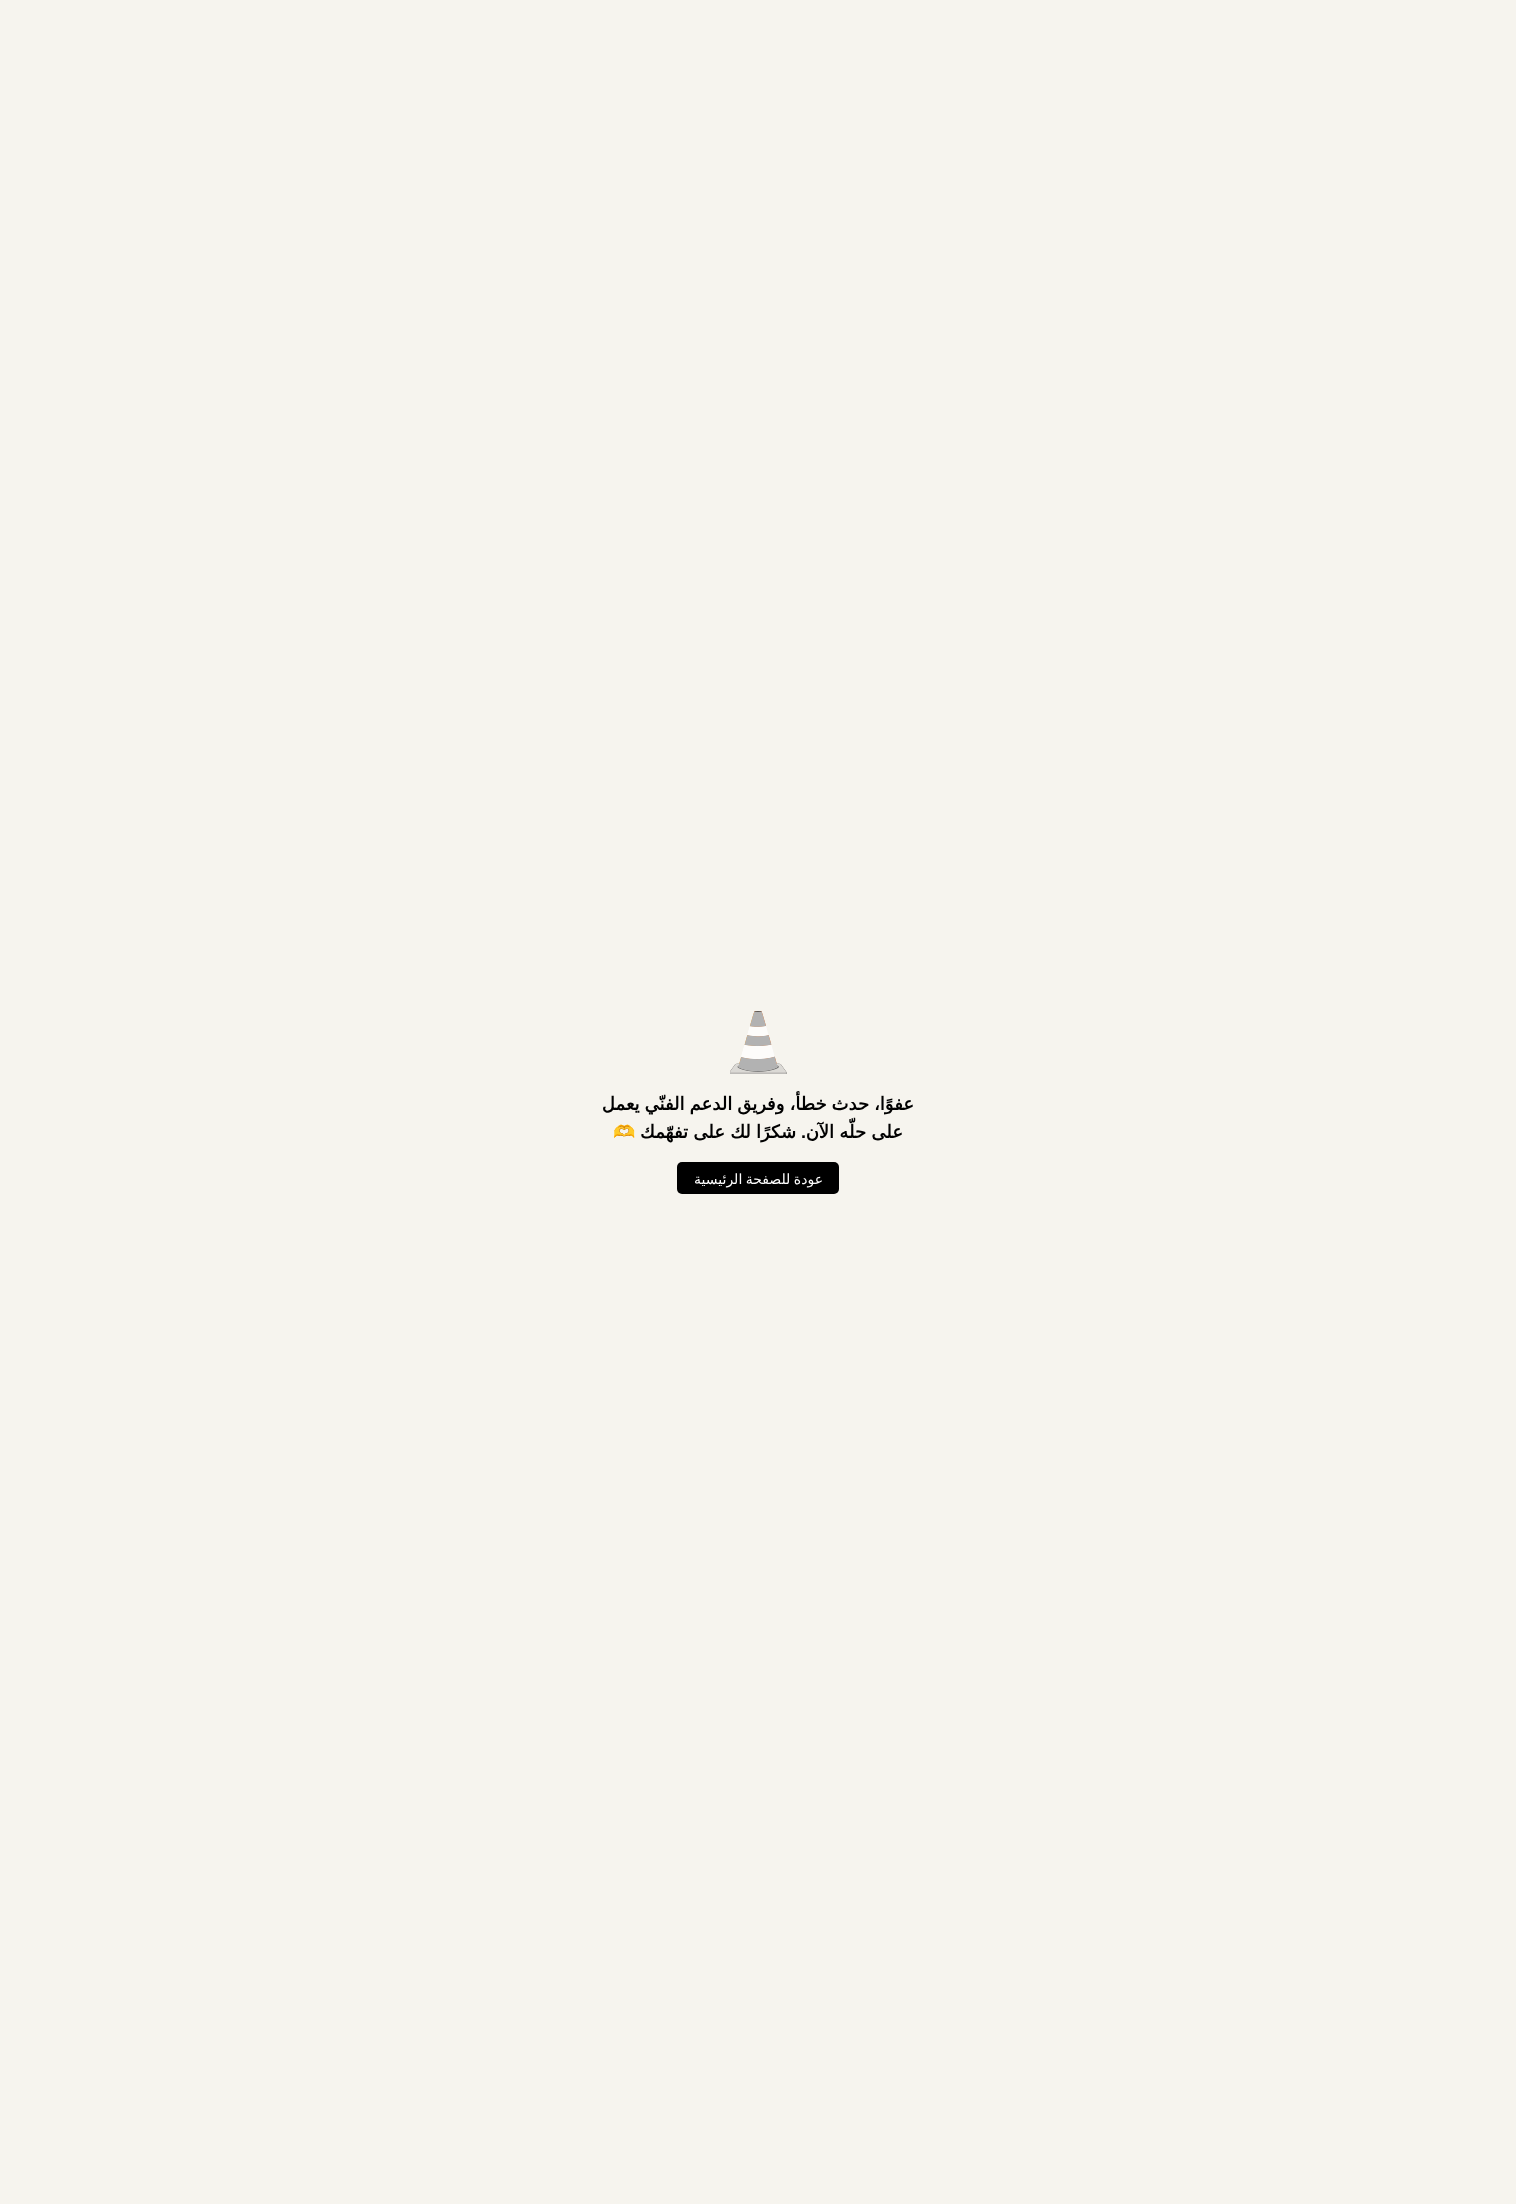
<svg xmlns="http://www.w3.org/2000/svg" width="1516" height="2204">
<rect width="100%" height="100%" fill="#f6f4ee"/>
<image x="730" y="1011" width="57" height="63" href="media/1.png"/>
<text x="914" y="1110" word-spacing="-0.75" style="font-family:DejaVu Sans;font-size:18px;font-weight:bold;direction:rtl;fill:#000">عفوًا، حدث خطأ، وفريق الدعم الفنّي يعمل</text>
<text x="903" y="1138" word-spacing="-0.5" style="font-family:DejaVu Sans;font-size:18px;font-weight:bold;direction:rtl;fill:#000">على حلّه الآن</text>
<text x="806" y="1138" style="font-family:Liberation Sans;font-size:18px;font-weight:bold;direction:rtl;fill:#000">.</text>
<text x="796" y="1138" word-spacing="-0.5" style="font-family:DejaVu Sans;font-size:18px;font-weight:bold;direction:rtl;fill:#000">شكرًا لك على تفهّمك</text>
<text x="636" y="1138" style="font-family:Noto Color Emoji;font-size:18px;font-weight:bold;direction:rtl;fill:#000">🫶</text>
<rect x="677" y="1162" width="162" height="32" rx="5" fill="#000"/>
<text x="823" y="1184" word-spacing="-1" style="font-family:DejaVu Sans;font-size:14px;direction:rtl;fill:#fff">عودة للصفحة الرئيسية</text>
</svg>
